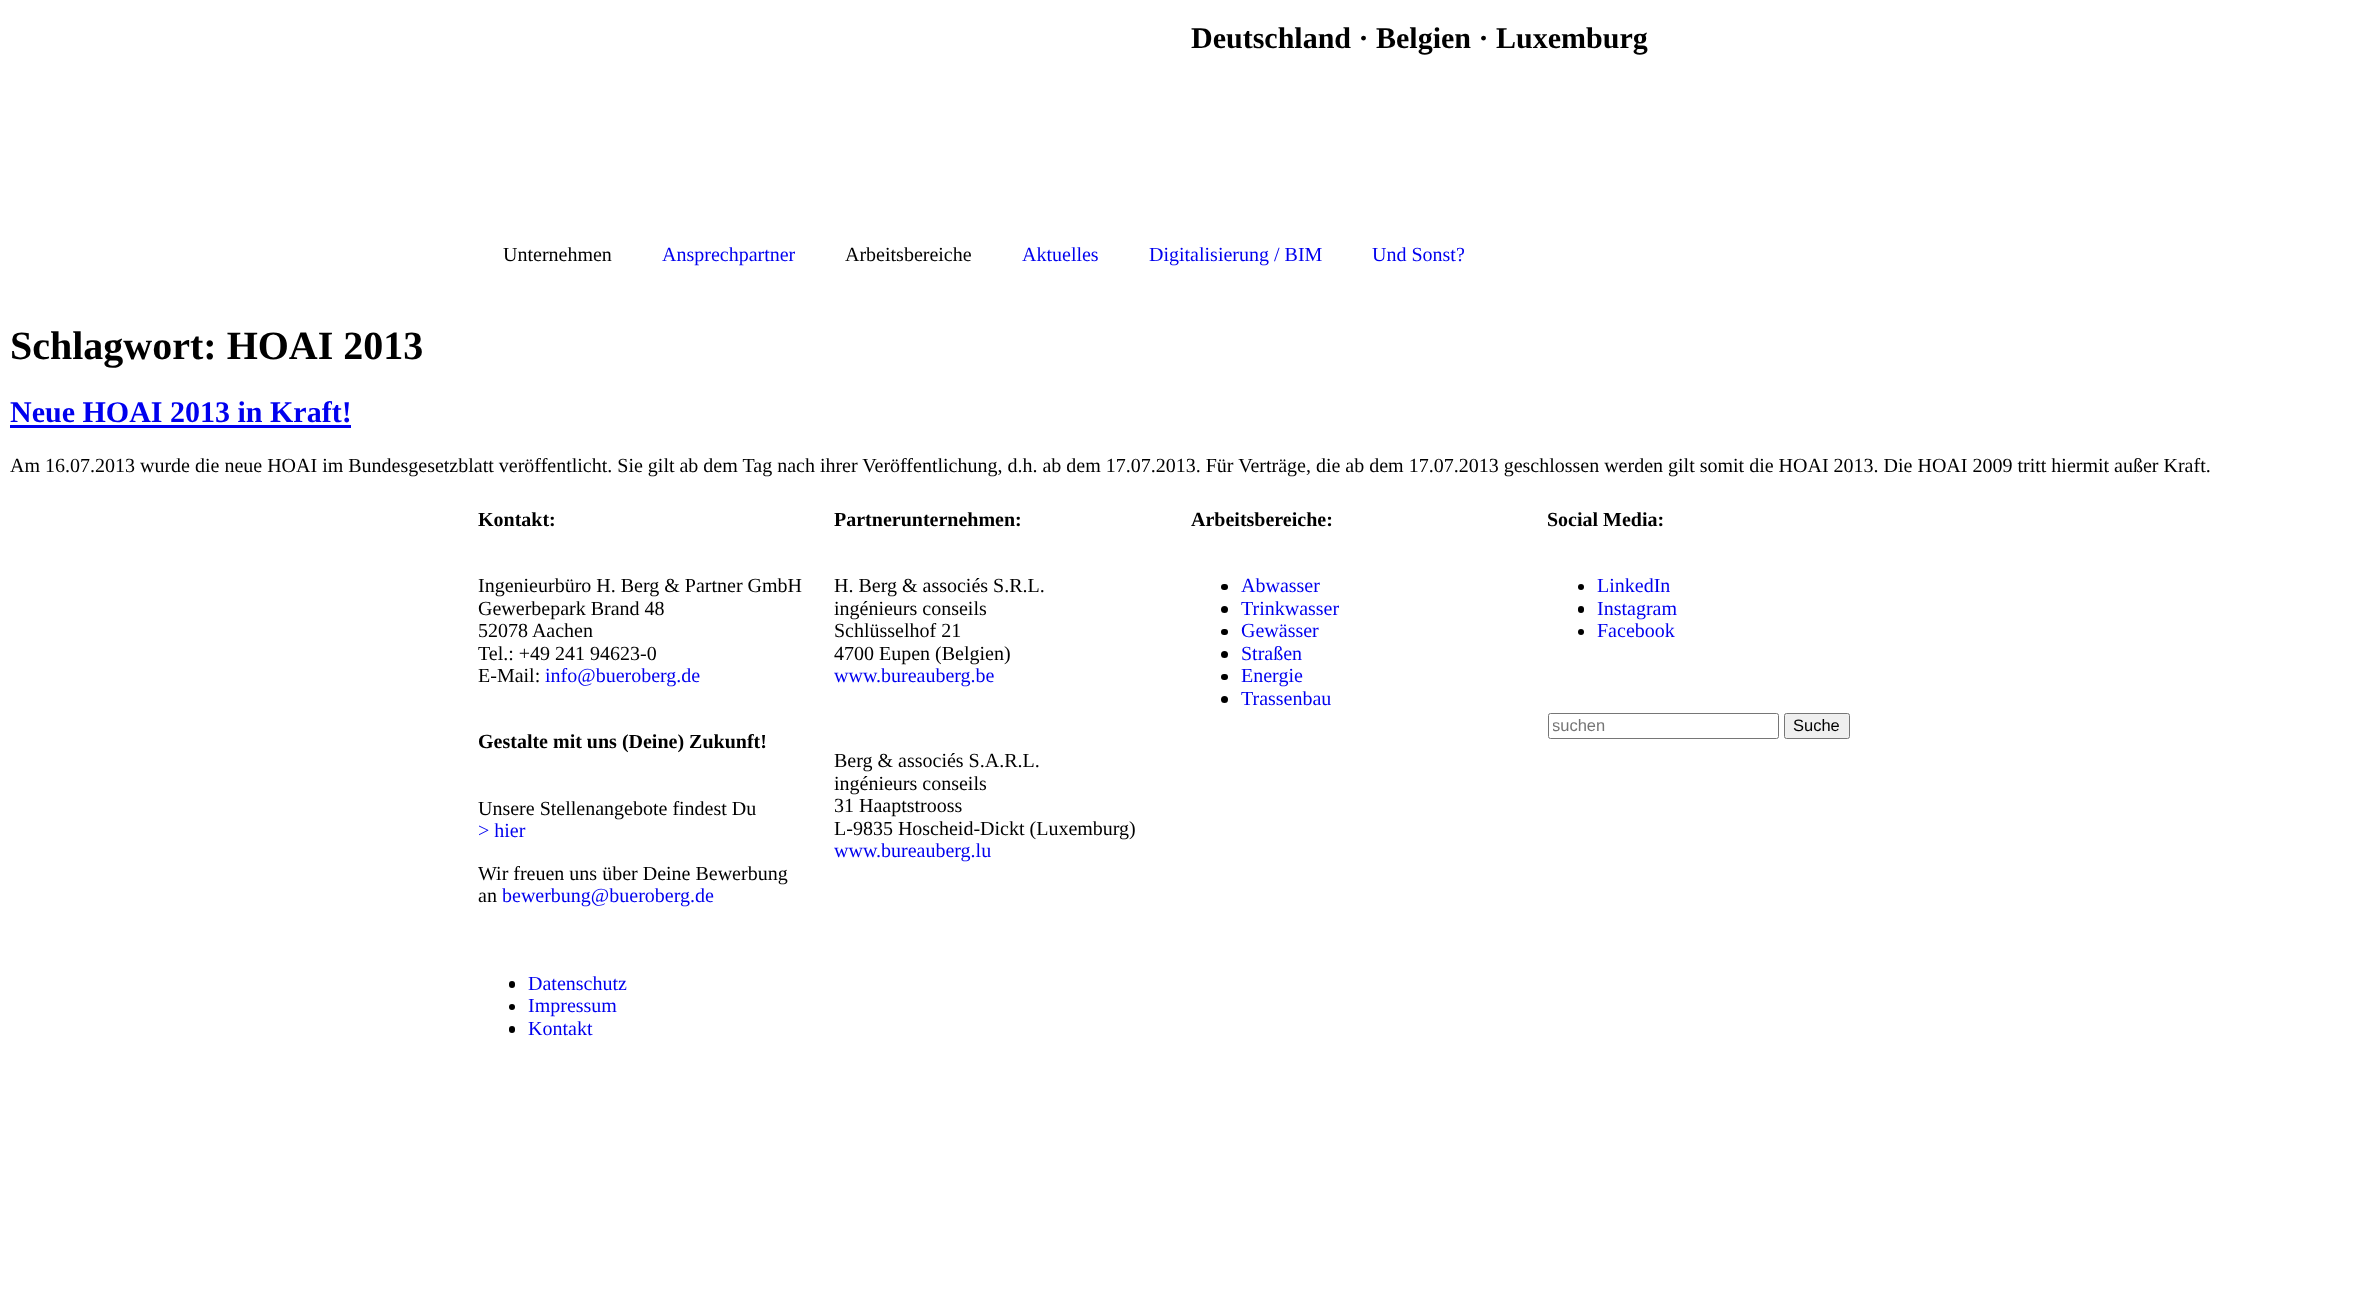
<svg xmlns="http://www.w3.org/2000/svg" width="2356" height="1295">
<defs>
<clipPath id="clip1"><rect x="1553" y="716" width="205" height="19"/></clipPath>
</defs>
<rect width="100%" height="100%" fill="#fff"/>
<text x="1191" y="48" style="font-family:Liberation Serif;font-size:30px;font-weight:bold;fill:#000">Deutschland · Belgien · Luxemburg</text>
<text x="503" y="261" style="font-family:Liberation Serif;font-size:20px;fill:#000">Unternehmen</text>
<text x="662" y="261" style="font-family:Liberation Serif;font-size:20px;fill:#00e">Ansprechpartner</text>
<text x="845" y="261" style="font-family:Liberation Serif;font-size:20px;fill:#000">Arbeitsbereiche</text>
<text x="1022" y="261" style="font-family:Liberation Serif;font-size:20px;fill:#00e">Aktuelles</text>
<text x="1149" y="261" style="font-family:Liberation Serif;font-size:20px;fill:#00e">Digitalisierung / BIM</text>
<text x="1372" y="261" style="font-family:Liberation Serif;font-size:20px;fill:#00e">Und Sonst?</text>
<text x="10" y="359" style="font-family:Liberation Serif;font-size:40px;font-weight:bold;fill:#000">Schlagwort: HOAI 2013</text>
<text x="10" y="422" style="font-family:Liberation Serif;font-size:30px;font-weight:bold;fill:#00e">Neue HOAI 2013 in Kraft!</text>
<rect x="10" y="425" width="341" height="3" fill="#00e"/>
<text x="10" y="472" style="font-family:Liberation Serif;font-size:20px;fill:#000">Am 16.07.2013 wurde die neue HOAI im Bundesgesetzblatt veröffentlicht. Sie gilt ab dem Tag nach ihrer Veröffentlichung, d.h. ab dem 17.07.2013. Für Verträge, die ab dem 17.07.2013 geschlossen werden gilt somit die HOAI 2013. Die HOAI 2009 tritt hiermit außer Kraft.</text>
<text x="478" y="526" style="font-family:Liberation Serif;font-size:20px;font-weight:bold;fill:#000">Kontakt:</text>
<text x="478" y="592" style="font-family:Liberation Serif;font-size:20px;fill:#000">Ingenieurbüro H. Berg &amp; Partner GmbH</text>
<text x="478" y="615" style="font-family:Liberation Serif;font-size:20px;fill:#000">Gewerbepark Brand 48</text>
<text x="478" y="637" style="font-family:Liberation Serif;font-size:20px;fill:#000">52078 Aachen</text>
<text x="478" y="660" style="font-family:Liberation Serif;font-size:20px;fill:#000">Tel.: +49 241 94623-0</text>
<text x="478" y="682" style="font-family:Liberation Serif;font-size:20px;fill:#000">E-Mail:</text>
<text x="545" y="682" style="font-family:Liberation Serif;font-size:20px;fill:#00e">info@bueroberg.de</text>
<text x="478" y="748" style="font-family:Liberation Serif;font-size:20px;font-weight:bold;fill:#000">Gestalte mit uns (Deine) Zukunft!</text>
<text x="478" y="815" style="font-family:Liberation Serif;font-size:20px;fill:#000">Unsere Stellenangebote findest Du</text>
<text x="478" y="837" style="font-family:Liberation Serif;font-size:20px;fill:#00e">&gt; hier</text>
<text x="478" y="880" style="font-family:Liberation Serif;font-size:20px;fill:#000">Wir freuen uns über Deine Bewerbung</text>
<text x="478" y="902" style="font-family:Liberation Serif;font-size:20px;fill:#000">an</text>
<text x="502" y="902" style="font-family:Liberation Serif;font-size:20px;fill:#00e">bewerbung@bueroberg.de</text>
<text x="834" y="526" style="font-family:Liberation Serif;font-size:20px;font-weight:bold;fill:#000">Partnerunternehmen:</text>
<text x="834" y="592" style="font-family:Liberation Serif;font-size:20px;fill:#000">H. Berg &amp; associés S.R.L.</text>
<text x="834" y="615" style="font-family:Liberation Serif;font-size:20px;fill:#000">ingénieurs conseils</text>
<text x="834" y="637" style="font-family:Liberation Serif;font-size:20px;fill:#000">Schlüsselhof 21</text>
<text x="834" y="660" style="font-family:Liberation Serif;font-size:20px;fill:#000">4700 Eupen (Belgien)</text>
<text x="834" y="682" style="font-family:Liberation Serif;font-size:20px;fill:#00e">www.bureauberg.be</text>
<text x="834" y="767" style="font-family:Liberation Serif;font-size:20px;fill:#000">Berg &amp; associés S.A.R.L.</text>
<text x="834" y="790" style="font-family:Liberation Serif;font-size:20px;fill:#000">ingénieurs conseils</text>
<text x="834" y="812" style="font-family:Liberation Serif;font-size:20px;fill:#000">31 Haaptstrooss</text>
<text x="834" y="835" style="font-family:Liberation Serif;font-size:20px;fill:#000">L-9835 Hoscheid-Dickt (Luxemburg)</text>
<text x="834" y="857" style="font-family:Liberation Serif;font-size:20px;fill:#00e">www.bureauberg.lu</text>
<text x="1191" y="526" style="font-family:Liberation Serif;font-size:20px;font-weight:bold;fill:#000">Arbeitsbereiche:</text>
<rect x="1221" y="584" width="7" height="6" rx="3" fill="#000"/>
<text x="1241" y="592" style="font-family:Liberation Serif;font-size:20px;fill:#00e">Abwasser</text>
<circle cx="1224.5" cy="609.5" r="3.5" fill="#000"/>
<text x="1241" y="615" style="font-family:Liberation Serif;font-size:20px;fill:#00e">Trinkwasser</text>
<rect x="1221" y="629" width="7" height="6" rx="3" fill="#000"/>
<text x="1241" y="637" style="font-family:Liberation Serif;font-size:20px;fill:#00e">Gewässer</text>
<circle cx="1224.5" cy="654.5" r="3.5" fill="#000"/>
<text x="1241" y="660" style="font-family:Liberation Serif;font-size:20px;fill:#00e">Straßen</text>
<rect x="1221" y="674" width="7" height="6" rx="3" fill="#000"/>
<text x="1241" y="682" style="font-family:Liberation Serif;font-size:20px;fill:#00e">Energie</text>
<circle cx="1224.5" cy="699.5" r="3.5" fill="#000"/>
<text x="1241" y="705" style="font-family:Liberation Serif;font-size:20px;fill:#00e">Trassenbau</text>
<text x="1547" y="526" style="font-family:Liberation Serif;font-size:20px;font-weight:bold;fill:#000">Social Media:</text>
<circle cx="1581" cy="587" r="3" fill="#000"/>
<text x="1597" y="592" style="font-family:Liberation Serif;font-size:20px;fill:#00e">LinkedIn</text>
<rect x="1578" y="606" width="6" height="7" rx="3" fill="#000"/>
<text x="1597" y="615" style="font-family:Liberation Serif;font-size:20px;fill:#00e">Instagram</text>
<circle cx="1581" cy="632" r="3" fill="#000"/>
<text x="1597" y="637" style="font-family:Liberation Serif;font-size:20px;fill:#00e">Facebook</text>
<rect x="1548.5" y="713.5" width="230" height="25" rx="2" fill="none" stroke="#767676"/>
<g clip-path="url(#clip1)">
<text x="1552" y="731" style="font-family:Liberation Sans;font-size:16.5px;fill:#757575">suchen</text>
</g>
<rect x="1784.5" y="713.5" width="65" height="25" rx="2" fill="#efefef" stroke="#767676"/>
<text x="1793" y="731" style="font-family:Liberation Sans;font-size:16.5px;fill:#000">Suche</text>
<rect x="509" y="981" width="6" height="7" rx="3" fill="#000"/>
<text x="528" y="990" style="font-family:Liberation Serif;font-size:20px;fill:#00e">Datenschutz</text>
<circle cx="512" cy="1007" r="3" fill="#000"/>
<text x="528" y="1012" style="font-family:Liberation Serif;font-size:20px;fill:#00e">Impressum</text>
<rect x="509" y="1026" width="6" height="7" rx="3" fill="#000"/>
<text x="528" y="1035" style="font-family:Liberation Serif;font-size:20px;fill:#00e">Kontakt</text>
</svg>
